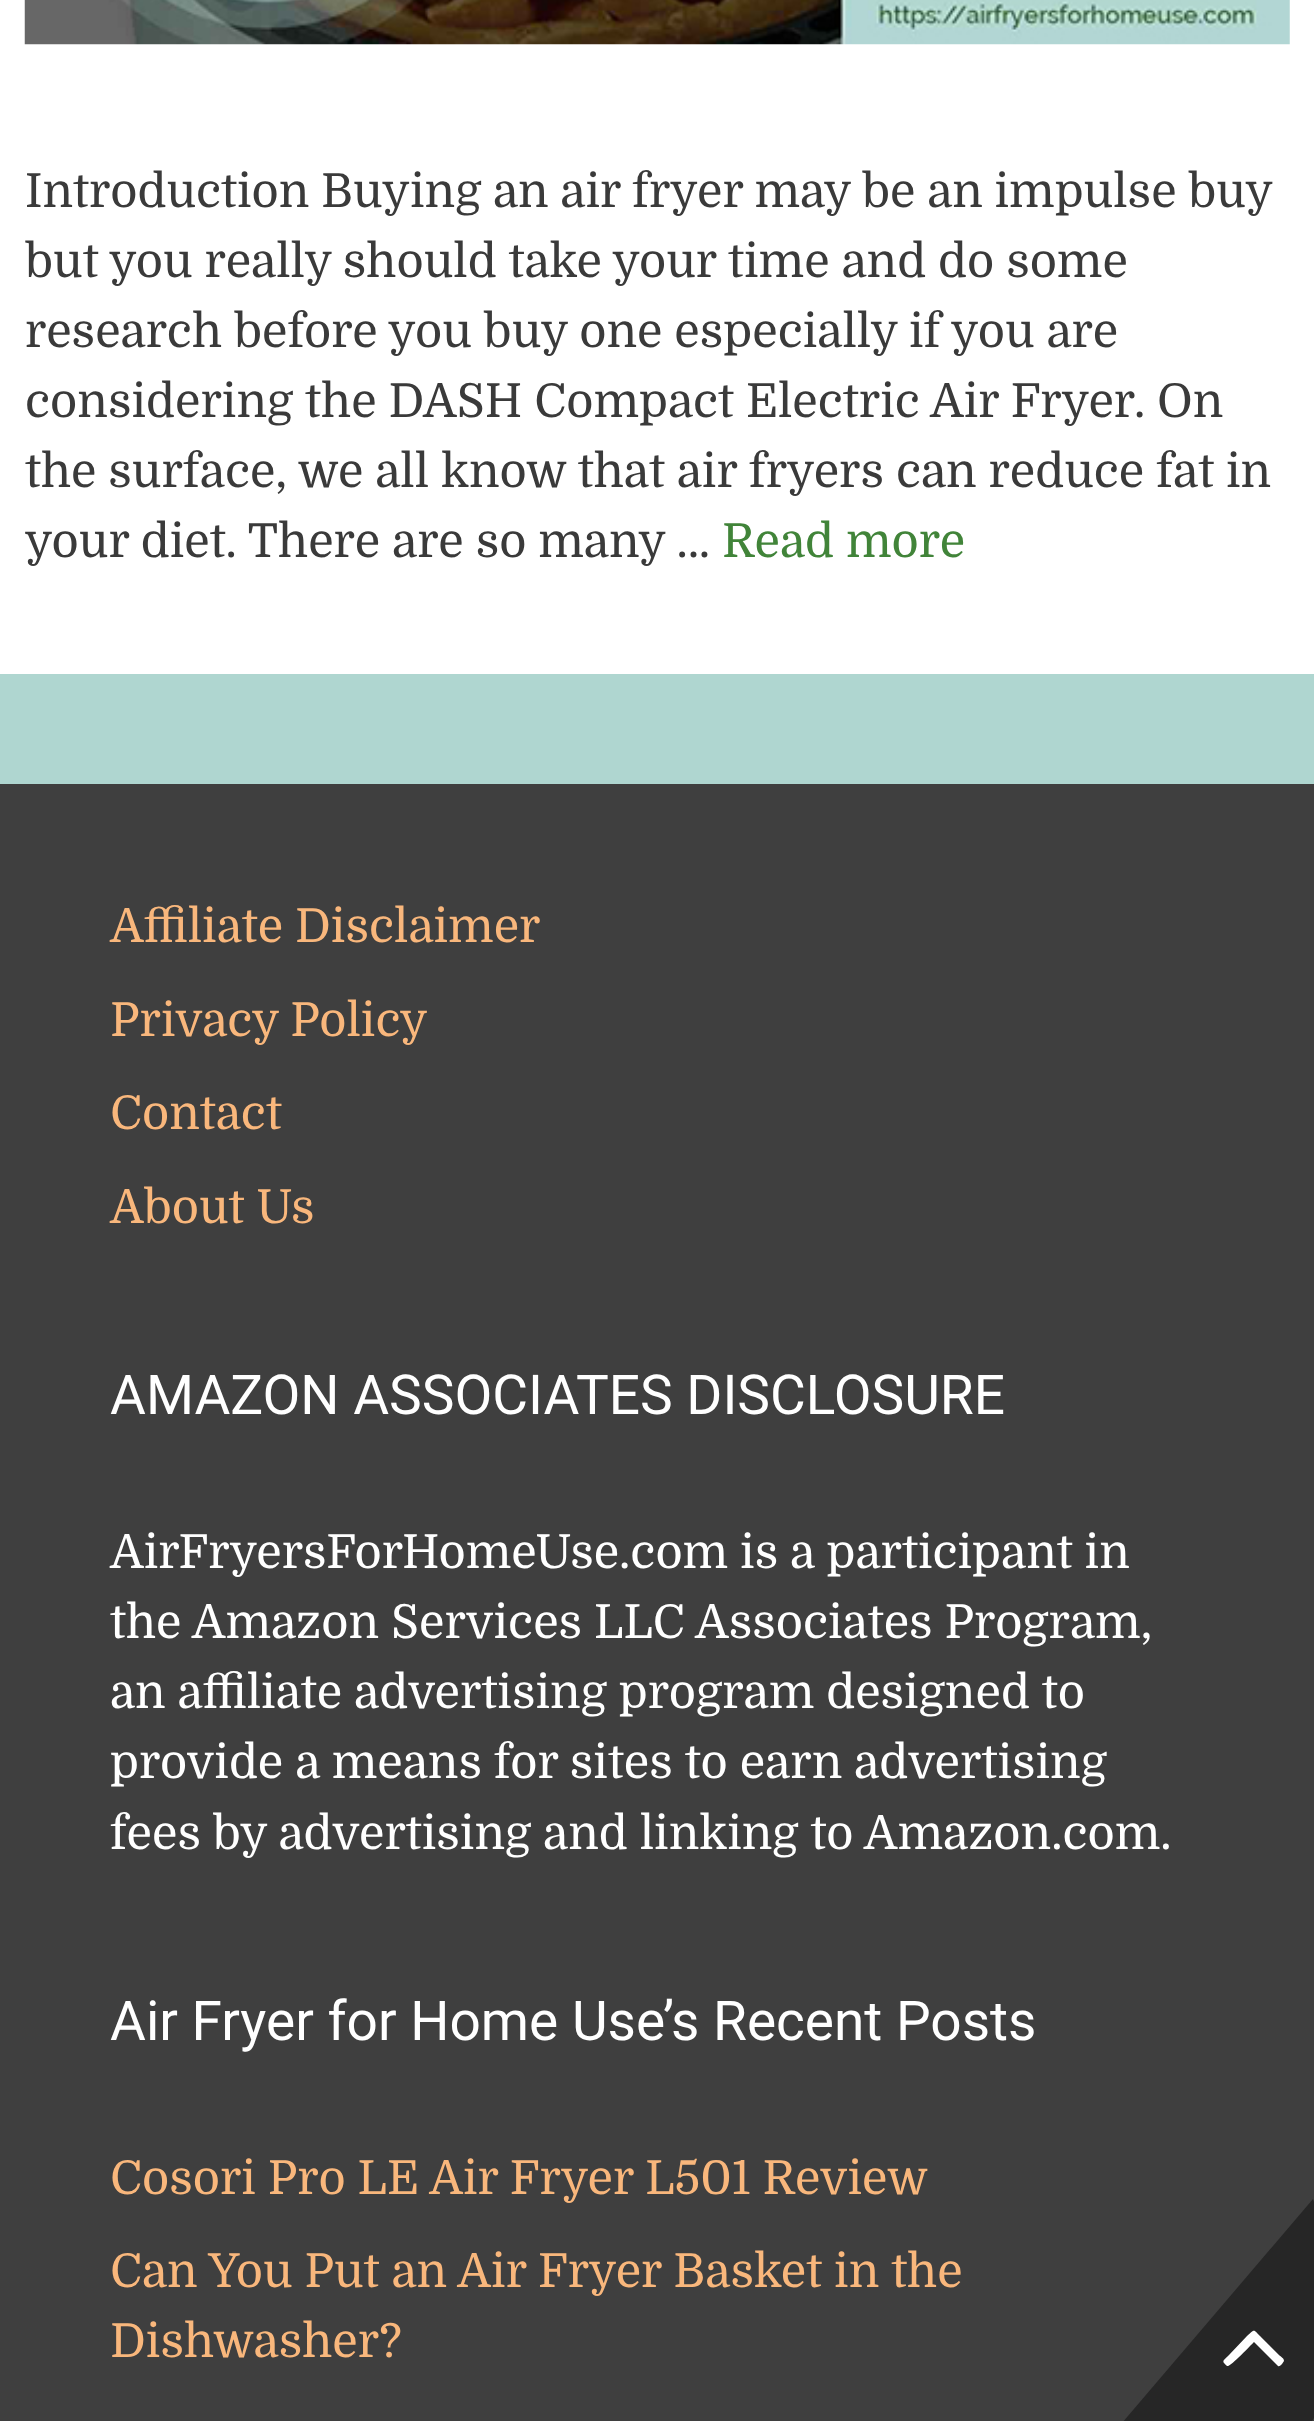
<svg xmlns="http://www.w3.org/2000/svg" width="1314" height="2421">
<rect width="100%" height="100%" fill="#afd6d0"/>
<rect width="1314" height="674" fill="#fff"/>
<image x="24" y="0" width="1266" height="45" href="media/1.png"/>
<text x="25" y="207" word-spacing="-0.25" style="font-family:Domine;font-size:46.75px;fill:#3a3a3a">Introduction Buying an air fryer may be an impulse buy</text>
<text x="25" y="277" style="font-family:Domine;font-size:46.75px;fill:#3a3a3a">but you really should take your time and do some</text>
<text x="25" y="347" style="font-family:Domine;font-size:46.75px;fill:#3a3a3a">research before you buy one especially if you are</text>
<text x="25" y="417" style="font-family:Domine;font-size:46.75px;fill:#3a3a3a">considering the DASH Compact Electric Air Fryer. On</text>
<text x="25" y="487" style="font-family:Domine;font-size:46.75px;fill:#3a3a3a">the surface, we all know that air fryers can reduce fat in</text>
<text x="25" y="557" style="font-family:Domine;font-size:46.75px;fill:#3a3a3a">your diet. There are so many …</text>
<text x="722" y="557" style="font-family:Domine;font-size:46.75px;fill:#418439">Read more</text>
<rect y="784" width="1314" height="1637" fill="#3f3f3f"/>
<text x="110" y="942" style="font-family:Domine;font-size:46.75px;fill:#f9b77c">Affiliate Disclaimer</text>
<text x="110" y="1036" style="font-family:Domine;font-size:46.75px;fill:#f9b77c">Privacy Policy</text>
<text x="110" y="1129" style="font-family:Domine;font-size:46.75px;fill:#f9b77c">Contact</text>
<text x="110" y="1223" style="font-family:Domine;font-size:46.75px;fill:#f9b77c">About Us</text>
<text x="110" y="1414" style="font-family:Roboto;font-size:55px;fill:#fff">AMAZON ASSOCIATES DISCLOSURE</text>
<text x="110" y="1568" style="font-family:Domine;font-size:46.75px;fill:#fff">AirFryersForHomeUse.com is a participant in</text>
<text x="110" y="1638" style="font-family:Domine;font-size:46.75px;fill:#fff">the Amazon Services LLC Associates Program,</text>
<text x="110" y="1708" style="font-family:Domine;font-size:46.75px;fill:#fff">an affiliate advertising program designed to</text>
<text x="110" y="1778" style="font-family:Domine;font-size:46.75px;fill:#fff">provide a means for sites to earn advertising</text>
<text x="110" y="1849" style="font-family:Domine;font-size:46.75px;fill:#fff">fees by advertising and linking to Amazon.com.</text>
<text x="110" y="2040" style="font-family:Roboto;font-size:55px;fill:#fff">Air Fryer for Home Use’s Recent Posts</text>
<text x="110" y="2194" style="font-family:Domine;font-size:46.75px;fill:#f9b77c">Cosori Pro LE Air Fryer L501 Review</text>
<text x="110" y="2287" style="font-family:Domine;font-size:46.75px;fill:#f9b77c">Can You Put an Air Fryer Basket in the</text>
<text x="110" y="2357" style="font-family:Domine;font-size:46.75px;fill:#f9b77c">Dishwasher?</text>
<path d="M1309 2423h-187l191-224l1 3v216l-2 3z" fill="#262626"/>
<path d="M1284 2361l-2 3c-1 1-3 3-4 2l-24-24c-3 3-23 24-26 24h-1c-6-5-4-5 2-11l18-19c8-7 6-7 13 0l19 19c2 2 5 3 5 6z" fill="#fff"/>
</svg>
